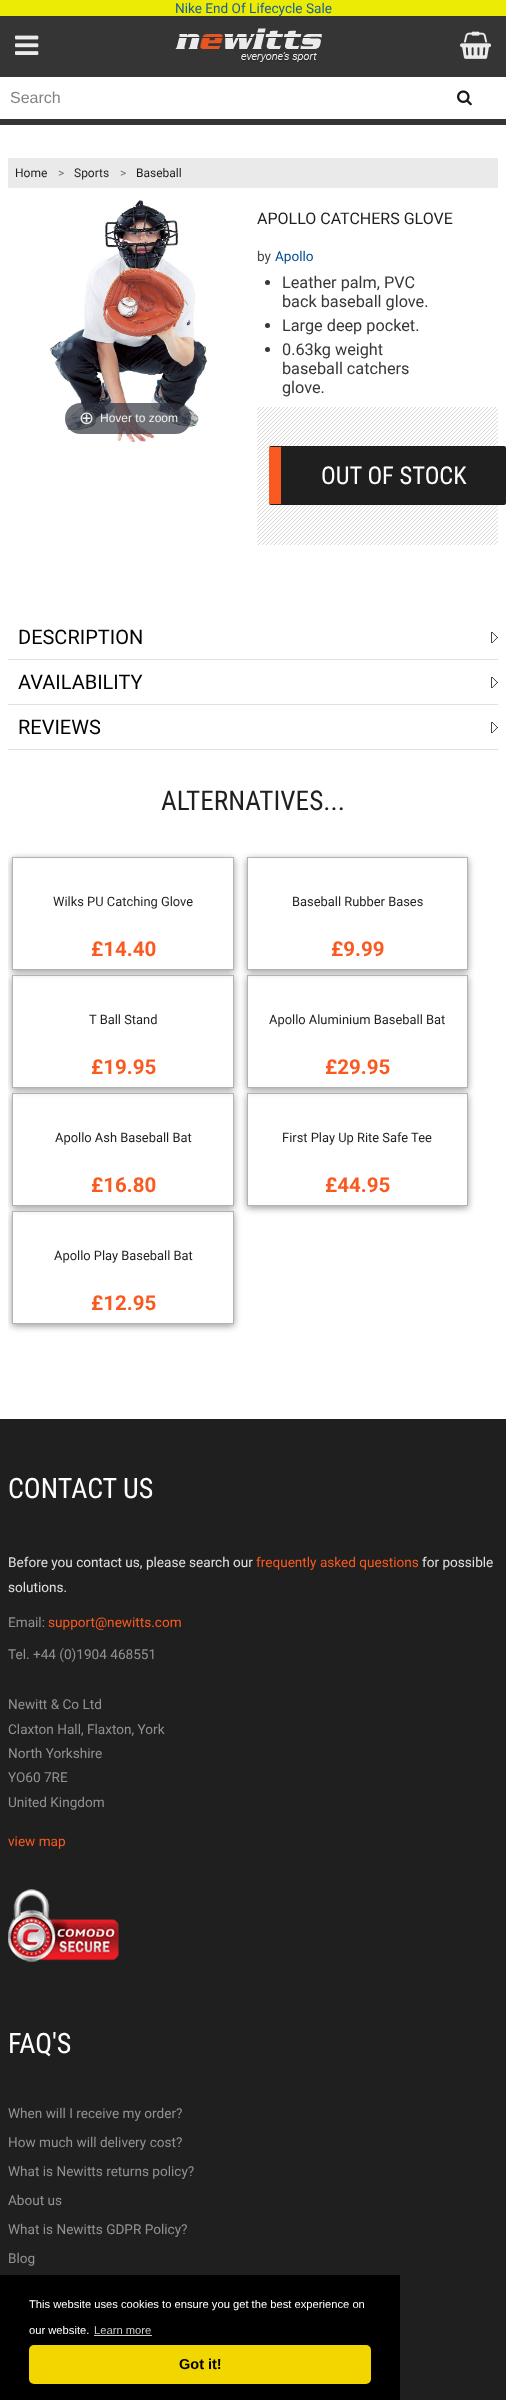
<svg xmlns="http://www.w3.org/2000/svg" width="506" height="2400">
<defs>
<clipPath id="clip1"><rect x="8" y="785" width="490" height="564"/></clipPath>
<clipPath id="clip2"><path d="M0 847h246v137h-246zm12 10h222v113h-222z" clip-rule="evenodd"/></clipPath>
<clipPath id="clip3"><path d="M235 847h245v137h-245zm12 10h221v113h-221z" clip-rule="evenodd"/></clipPath>
<clipPath id="clip4"><path d="M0 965h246v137h-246zm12 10h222v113h-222z" clip-rule="evenodd"/></clipPath>
<clipPath id="clip5"><path d="M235 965h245v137h-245zm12 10h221v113h-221z" clip-rule="evenodd"/></clipPath>
<clipPath id="clip6"><path d="M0 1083h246v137h-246zm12 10h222v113h-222z" clip-rule="evenodd"/></clipPath>
<clipPath id="clip7"><path d="M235 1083h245v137h-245zm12 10h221v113h-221z" clip-rule="evenodd"/></clipPath>
<clipPath id="clip8"><path d="M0 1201h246v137h-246zm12 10h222v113h-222z" clip-rule="evenodd"/></clipPath>
</defs>
<rect width="100%" height="100%" fill="#fff"/>
<rect y="16" width="506" height="109" fill="#353535"/>
<rect width="506" height="16" fill="#ebeb05"/>
<text x="175" y="13" style="font-family:Roboto;font-size:13.6px;fill:#1a5d9c">Nike End Of Lifecycle Sale</text>
<image x="15" y="35" width="24" height="20" href="media/1.png"/>
<image x="175" y="28" width="147" height="35" href="media/2.png"/>
<image x="460" y="31" width="32" height="28" href="media/3.png"/>
<rect y="77" width="506" height="42" fill="#fff"/>
<text x="10" y="103" style="font-family:Liberation Sans;font-size:16px;fill:#838383">Search</text>
<image x="457" y="90" width="15" height="16" href="media/4.png"/>
<rect x="8" y="158" width="490" height="30" fill="#eaeaea"/>
<text x="15" y="177" style="font-family:Roboto;font-size:12px;fill:#1f1f1f">Home</text>
<text x="58" y="177" style="font-family:Roboto;font-size:12px;fill:#777">&gt;</text>
<text x="74" y="177" style="font-family:Roboto;font-size:12px;fill:#1f1f1f">Sports</text>
<text x="120" y="177" style="font-family:Roboto;font-size:12px;fill:#777">&gt;</text>
<text x="136" y="177" style="font-family:Roboto;font-size:12px;fill:#1f1f1f">Baseball</text>
<image x="49" y="200" width="158" height="242" href="media/5.png"/>
<rect x="65" y="403" width="126" height="31" rx="15.5" fill="#31333db3"/>
<text x="79" y="424" style="font-family:DejaVu Sans;font-size:18px;fill:#eee">⊕</text>
<text x="100" y="422" style="font-family:Liberation Sans;font-size:12px;fill:#eee">Hover to zoom</text>
<text x="257" y="224" style="font-family:Roboto;font-size:16px;fill:#1f1f1f">APOLLO CATCHERS GLOVE</text>
<text x="257" y="261" style="font-family:Roboto;font-size:13.6px;fill:#474747">by</text>
<text x="275" y="261" style="font-family:Roboto;font-size:13.6px;fill:#004b91">Apollo</text>
<circle cx="267.5" cy="282.5" r="2.5" fill="#393737"/>
<text x="282" y="288" style="font-family:Roboto;font-size:16.25px;fill:#393737">Leather palm, PVC</text>
<text x="282" y="307" style="font-family:Roboto;font-size:16.25px;fill:#393737">back baseball glove.</text>
<circle cx="267.5" cy="325.5" r="2.5" fill="#393737"/>
<text x="282" y="331" style="font-family:Roboto;font-size:16.25px;fill:#393737">Large deep pocket.</text>
<circle cx="267.5" cy="349.5" r="2.5" fill="#393737"/>
<text x="282" y="355" style="font-family:Roboto;font-size:16.25px;fill:#393737">0.63kg weight</text>
<text x="282" y="374" style="font-family:Roboto;font-size:16.25px;fill:#393737">baseball catchers</text>
<text x="282" y="393" style="font-family:Roboto;font-size:16.25px;fill:#393737">glove.</text>
<image x="257" y="407" width="241" height="138" href="media/6.png"/>
<rect x="269" y="446" width="237" height="59" rx="2" fill="#1f1f1f"/>
<rect x="269" y="447" width="12" height="57" fill="#f95a21"/>
<text x="321" y="484" style="font-family:Roboto Condensed;font-size:24.5px;fill:#fff">OUT OF STOCK</text>
<image x="491" y="632" width="7" height="11" href="media/7.png"/>
<rect x="8" y="659" width="490" height="1" fill="#e0e0e0"/>
<text x="18" y="644" style="font-family:Roboto;font-size:20px;fill:#000">DESCRIPTION</text>
<image x="491" y="677" width="7" height="11" href="media/7.png"/>
<rect x="8" y="704" width="490" height="1" fill="#e0e0e0"/>
<text x="18" y="689" style="font-family:Roboto;font-size:20px;fill:#000">AVAILABILITY</text>
<image x="491" y="722" width="7" height="11" href="media/7.png"/>
<rect x="8" y="749" width="490" height="1" fill="#e0e0e0"/>
<text x="18" y="734" style="font-family:Roboto;font-size:20px;fill:#000">REVIEWS</text>
<text x="161" y="810" style="font-family:Roboto Condensed;font-size:27.25px;fill:#1f1f1f">ALTERNATIVES...</text>
<g clip-path="url(#clip1)">
<g clip-path="url(#clip2)">
<rect x="12" y="859" width="222" height="113" fill="#9b9999" filter="blur(3.5px)"/>
</g>
</g>
<rect x="12.5" y="857.5" width="221" height="112" fill="none" stroke="#b3b3b3"/>
<text x="53" y="906" style="font-family:Roboto;font-size:12.9px;fill:#1f1f1f">Wilks PU Catching Glove</text>
<text x="91" y="956" style="font-family:Roboto;font-size:20.5px;font-weight:bold;fill:#f95a21">£14.40</text>
<g clip-path="url(#clip3)">
<rect x="247" y="859" width="221" height="113" fill="#9b9999" filter="blur(3.5px)"/>
</g>
<rect x="247.5" y="857.5" width="220" height="112" fill="none" stroke="#b3b3b3"/>
<text x="292" y="906" style="font-family:Roboto;font-size:12.9px;fill:#1f1f1f">Baseball Rubber Bases</text>
<text x="331" y="956" style="font-family:Roboto;font-size:20.5px;font-weight:bold;fill:#f95a21">£9.99</text>
<g clip-path="url(#clip1)">
<g clip-path="url(#clip4)">
<rect x="12" y="977" width="222" height="113" fill="#9b9999" filter="blur(3.5px)"/>
</g>
</g>
<rect x="12.5" y="975.5" width="221" height="112" fill="none" stroke="#b3b3b3"/>
<text x="89" y="1024" style="font-family:Roboto;font-size:12.9px;fill:#1f1f1f">T Ball Stand</text>
<text x="91" y="1074" style="font-family:Roboto;font-size:20.5px;font-weight:bold;fill:#f95a21">£19.95</text>
<g clip-path="url(#clip5)">
<rect x="247" y="977" width="221" height="113" fill="#9b9999" filter="blur(3.5px)"/>
</g>
<rect x="247.5" y="975.5" width="220" height="112" fill="none" stroke="#b3b3b3"/>
<text x="269" y="1024" style="font-family:Roboto;font-size:12.9px;fill:#1f1f1f">Apollo Aluminium Baseball Bat</text>
<text x="325" y="1074" style="font-family:Roboto;font-size:20.5px;font-weight:bold;fill:#f95a21">£29.95</text>
<g clip-path="url(#clip1)">
<g clip-path="url(#clip6)">
<rect x="12" y="1095" width="222" height="113" fill="#9b9999" filter="blur(3.5px)"/>
</g>
</g>
<rect x="12.5" y="1093.5" width="221" height="112" fill="none" stroke="#b3b3b3"/>
<text x="55" y="1142" style="font-family:Roboto;font-size:12.9px;fill:#1f1f1f">Apollo Ash Baseball Bat</text>
<text x="91" y="1192" style="font-family:Roboto;font-size:20.5px;font-weight:bold;fill:#f95a21">£16.80</text>
<g clip-path="url(#clip7)">
<rect x="247" y="1095" width="221" height="113" fill="#9b9999" filter="blur(3.5px)"/>
</g>
<rect x="247.5" y="1093.5" width="220" height="112" fill="none" stroke="#b3b3b3"/>
<text x="282" y="1142" style="font-family:Roboto;font-size:12.9px;fill:#1f1f1f">First Play Up Rite Safe Tee</text>
<text x="325" y="1192" style="font-family:Roboto;font-size:20.5px;font-weight:bold;fill:#f95a21">£44.95</text>
<g clip-path="url(#clip1)">
<g clip-path="url(#clip8)">
<rect x="12" y="1213" width="222" height="113" fill="#9b9999" filter="blur(3.5px)"/>
</g>
</g>
<rect x="12.5" y="1211.5" width="221" height="112" fill="none" stroke="#b3b3b3"/>
<text x="54" y="1260" style="font-family:Roboto;font-size:12.9px;fill:#1f1f1f">Apollo Play Baseball Bat</text>
<text x="91" y="1310" style="font-family:Roboto;font-size:20.5px;font-weight:bold;fill:#f95a21">£12.95</text>
<rect y="1419" width="506" height="981" fill="#1f1f1f"/>
<text x="8" y="1498" style="font-family:Roboto Condensed;font-size:28px;fill:#fff">CONTACT US</text>
<text x="8" y="1567" style="font-family:Roboto;font-size:13.6px;fill:#e0e0e0">Before you contact us, please search our</text>
<text x="256" y="1567" style="font-family:Roboto;font-size:13.6px;fill:#f95a21">frequently asked questions</text>
<text x="422" y="1567" style="font-family:Roboto;font-size:13.6px;fill:#e0e0e0">for possible</text>
<text x="8" y="1592" style="font-family:Roboto;font-size:13.6px;fill:#e0e0e0">solutions.</text>
<text x="8" y="1627" style="font-family:Roboto;font-size:13.6px;fill:#929292">Email:</text>
<text x="48" y="1627" style="font-family:Roboto;font-size:13.6px;fill:#f95a21">support@newitts.com</text>
<text x="8" y="1659" style="font-family:Roboto;font-size:13.6px;fill:#929292">Tel. +44 (0)1904 468551</text>
<text x="8" y="1709" style="font-family:Roboto;font-size:13.6px;fill:#929292">Newitt &amp; Co Ltd</text>
<text x="8" y="1734" style="font-family:Roboto;font-size:13.6px;fill:#929292">Claxton Hall, Flaxton, York</text>
<text x="8" y="1758" style="font-family:Roboto;font-size:13.6px;fill:#929292">North Yorkshire</text>
<text x="8" y="1782" style="font-family:Roboto;font-size:13.6px;fill:#929292">YO60 7RE</text>
<text x="8" y="1807" style="font-family:Roboto;font-size:13.6px;fill:#929292">United Kingdom</text>
<text x="8" y="1846" style="font-family:Roboto;font-size:13.6px;fill:#f95a21">view map</text>
<image x="8" y="1889" width="111" height="73" href="media/8.png"/>
<text x="8" y="2053" style="font-family:Roboto Condensed;font-size:28px;fill:#fff">FAQ'S</text>
<text x="8" y="2118" style="font-family:Roboto;font-size:13.6px;fill:#929292">When will I receive my order?</text>
<text x="8" y="2147" style="font-family:Roboto;font-size:13.6px;fill:#929292">How much will delivery cost?</text>
<text x="8" y="2176" style="font-family:Roboto;font-size:13.6px;fill:#929292">What is Newitts returns policy?</text>
<text x="8" y="2205" style="font-family:Roboto;font-size:13.6px;fill:#929292">About us</text>
<text x="8" y="2234" style="font-family:Roboto;font-size:13.6px;fill:#929292">What is Newitts GDPR Policy?</text>
<text x="8" y="2263" style="font-family:Roboto;font-size:13.6px;fill:#929292">Blog</text>
<rect y="2275" width="400" height="125" fill="#000"/>
<text x="29" y="2308" style="font-family:Liberation Sans;font-size:11.2px;fill:#fff">This website uses cookies to ensure you get the best experience on</text>
<text x="29" y="2334" style="font-family:Liberation Sans;font-size:11.2px;fill:#fff">our website.</text>
<text x="94" y="2334" style="font-family:Liberation Sans;font-size:11.2px;fill:#ccc">Learn more</text>
<rect x="94" y="2335" width="58" height="1" fill="#ccc"/>
<rect x="29" y="2345" width="342" height="39" rx="5" fill="#f1d600"/>
<text x="179" y="2369" style="font-family:Liberation Sans;font-size:14.5px;font-weight:bold;fill:#000">Got it!</text>
</svg>
